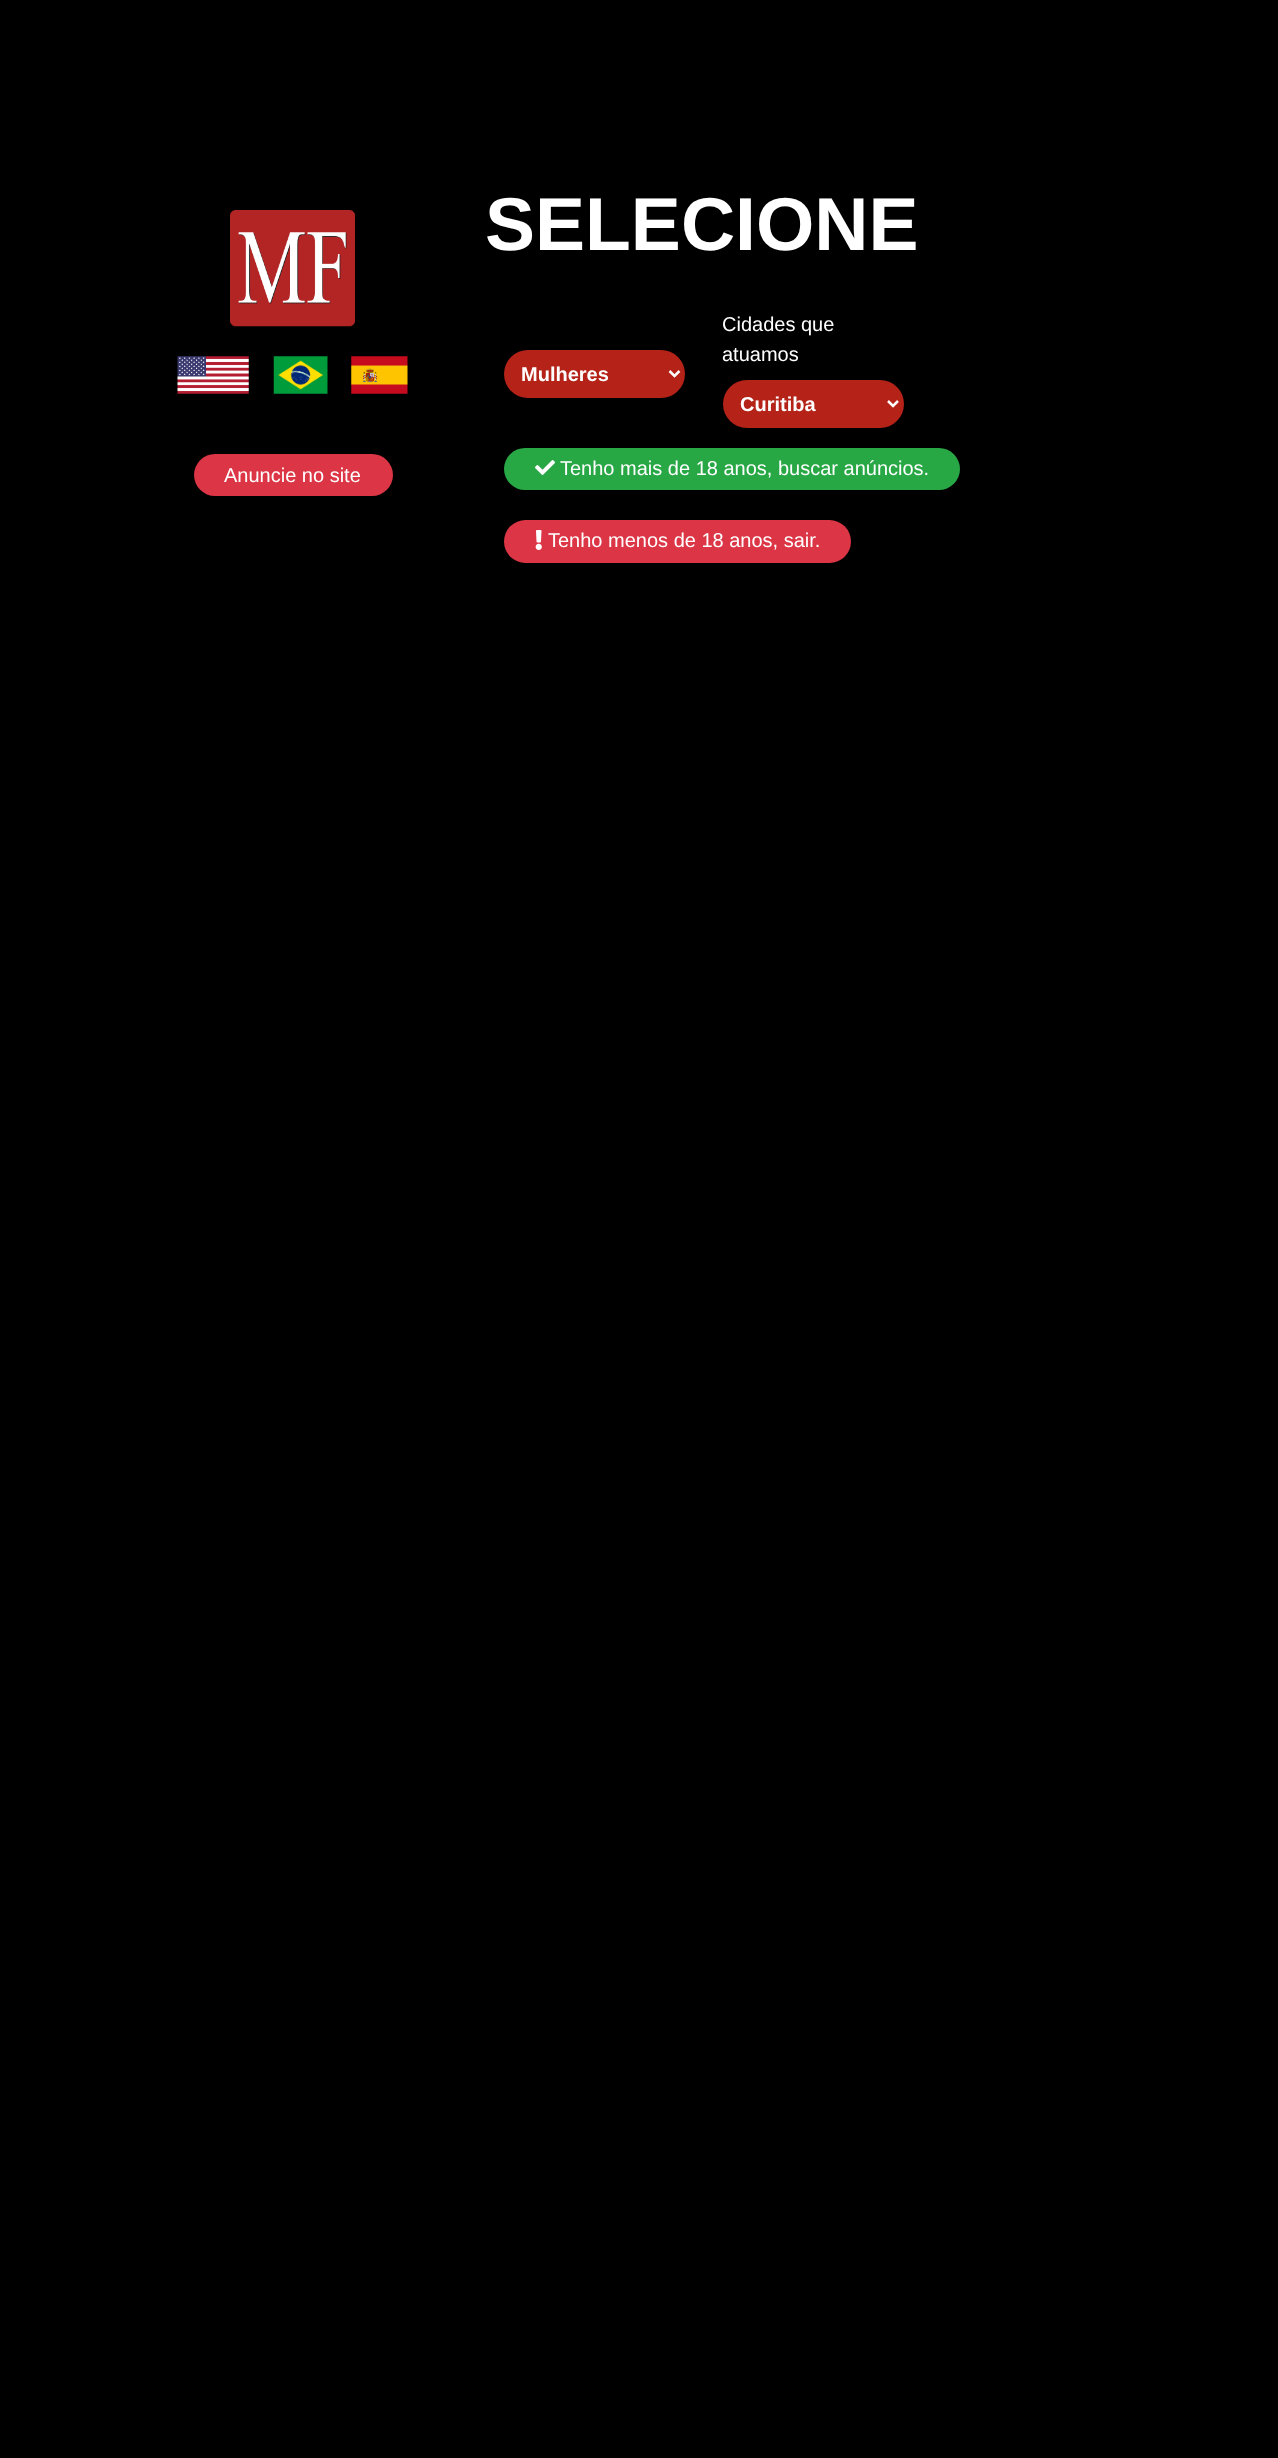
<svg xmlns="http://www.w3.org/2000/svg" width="1278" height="2458">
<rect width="100%" height="100%" fill="#000"/>
<image x="230" y="210" width="125" height="117" href="media/1.png"/>
<image x="177" y="356" width="72" height="38" href="media/2.png"/>
<image x="273" y="356" width="55" height="38" href="media/3.png"/>
<image x="351" y="356" width="57" height="38" href="media/4.png"/>
<rect x="194" y="454" width="199" height="42" rx="21" fill="#dc3545"/>
<text x="224" y="482" style="font-family:Liberation Sans;font-size:20px;fill:#fff">Anuncie no site</text>
<text x="485" y="250" style="font-family:Liberation Sans;font-size:75px;font-weight:bold;fill:#fff">SELECIONE</text>
<rect x="504" y="350" width="181" height="48" rx="24" fill="#b42218"/>
<path d="M669.5 371l5 5l5-5" fill="none" stroke="#fff" stroke-width="2.5"/>
<text x="521" y="381" style="font-family:Liberation Sans;font-size:20px;font-weight:bold;fill:#fff">Mulheres</text>
<text x="722" y="331" style="font-family:Liberation Sans;font-size:20px;fill:#fff">Cidades que</text>
<text x="722" y="361" style="font-family:Liberation Sans;font-size:20px;fill:#fff">atuamos</text>
<rect x="723" y="380" width="181" height="48" rx="24" fill="#b42218"/>
<path d="M888 401l5 5l5-5" fill="none" stroke="#fff" stroke-width="2.5"/>
<text x="740" y="411" style="font-family:Liberation Sans;font-size:20px;font-weight:bold;fill:#fff">Curitiba</text>
<rect x="504" y="448" width="456" height="42" rx="21" fill="#28a745"/>
<image x="535" y="460" width="20" height="15" href="media/5.png"/>
<text x="560" y="475" style="font-family:Liberation Sans;font-size:20px;fill:#fff">Tenho mais de 18 anos, buscar anúncios.</text>
<rect x="504" y="520" width="347" height="43" rx="21.5" fill="#dc3545"/>
<image x="535" y="530" width="7" height="20" href="media/6.png"/>
<text x="548" y="547" style="font-family:Liberation Sans;font-size:20px;fill:#fff">Tenho menos de 18 anos, sair.</text>
</svg>
